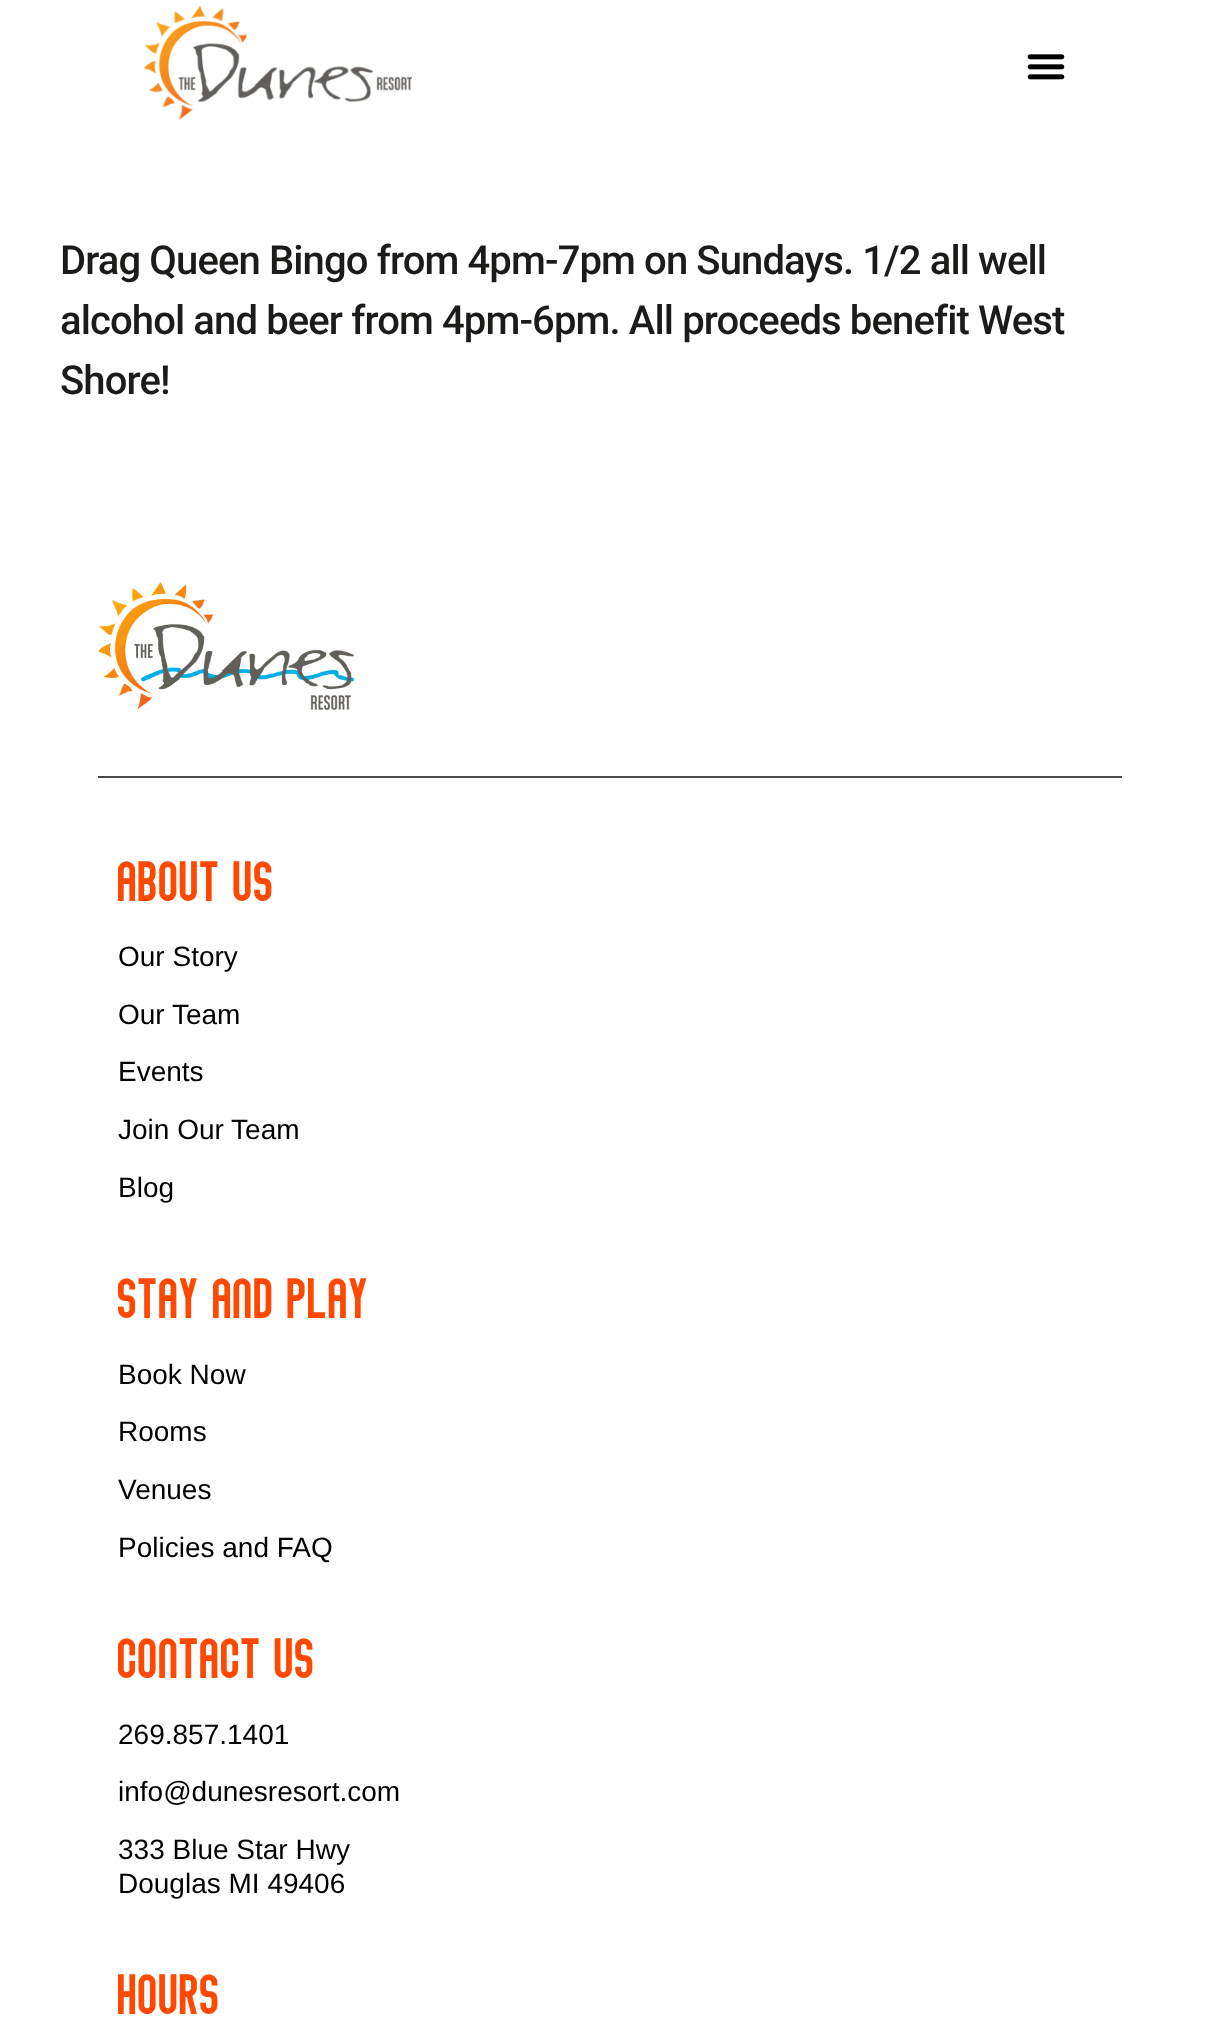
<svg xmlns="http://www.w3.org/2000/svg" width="1220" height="2041">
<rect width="100%" height="100%" fill="#fff"/>
<image x="144" y="6" width="268" height="114" href="media/1.png"/>
<image x="1027" y="54" width="38" height="26" href="media/2.png"/>
<text x="60" y="274" style="font-family:Roboto;font-size:40px;font-weight:500;letter-spacing:-0.88px;fill:#1b1b1a">Drag Queen Bingo from 4pm-7pm on Sundays. 1/2 all well</text>
<text x="60" y="334" style="font-family:Roboto;font-size:40px;font-weight:500;letter-spacing:-0.88px;fill:#1b1b1a">alcohol and beer from 4pm-6pm. All proceeds benefit West</text>
<text x="60" y="394" style="font-family:Roboto;font-size:40px;font-weight:500;letter-spacing:-0.88px;fill:#1b1b1a">Shore!</text>
<image x="98" y="582" width="256" height="128" href="media/3.png"/>
<rect x="98" y="776" width="1024" height="2" fill="#494949"/>
<text x="118" y="901" style="font-family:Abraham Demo;font-size:48px;fill:#ff4800">ABOUT US</text>
<text x="118" y="966" style="font-family:Liberation Sans;font-size:28px;fill:#000">Our Story</text>
<text x="118" y="1024" style="font-family:Liberation Sans;font-size:28px;fill:#000">Our Team</text>
<text x="118" y="1081" style="font-family:Liberation Sans;font-size:28px;fill:#000">Events</text>
<text x="118" y="1139" style="font-family:Liberation Sans;font-size:28px;fill:#000">Join Our Team</text>
<text x="118" y="1197" style="font-family:Liberation Sans;font-size:28px;fill:#000">Blog</text>
<text x="118" y="1318" style="font-family:Abraham Demo;font-size:48px;fill:#ff4800">STAY AND PLAY</text>
<text x="118" y="1384" style="font-family:Liberation Sans;font-size:28px;fill:#000">Book Now</text>
<text x="118" y="1441" style="font-family:Liberation Sans;font-size:28px;fill:#000">Rooms</text>
<text x="118" y="1499" style="font-family:Liberation Sans;font-size:28px;fill:#000">Venues</text>
<text x="118" y="1557" style="font-family:Liberation Sans;font-size:28px;fill:#000">Policies and FAQ</text>
<text x="118" y="1678" style="font-family:Abraham Demo;font-size:48px;fill:#ff4800">CONTACT US</text>
<text x="118" y="1744" style="font-family:Liberation Sans;font-size:28px;fill:#000">269.857.1401</text>
<text x="118" y="1801" style="font-family:Liberation Sans;font-size:28px;fill:#000">info@dunesresort.com</text>
<text x="118" y="1859" style="font-family:Liberation Sans;font-size:28px;fill:#000">333 Blue Star Hwy</text>
<text x="118" y="1893" style="font-family:Liberation Sans;font-size:28px;fill:#000">Douglas MI 49406</text>
<text x="118" y="2014" style="font-family:Abraham Demo;font-size:48px;fill:#ff4800">HOURS</text>
</svg>
